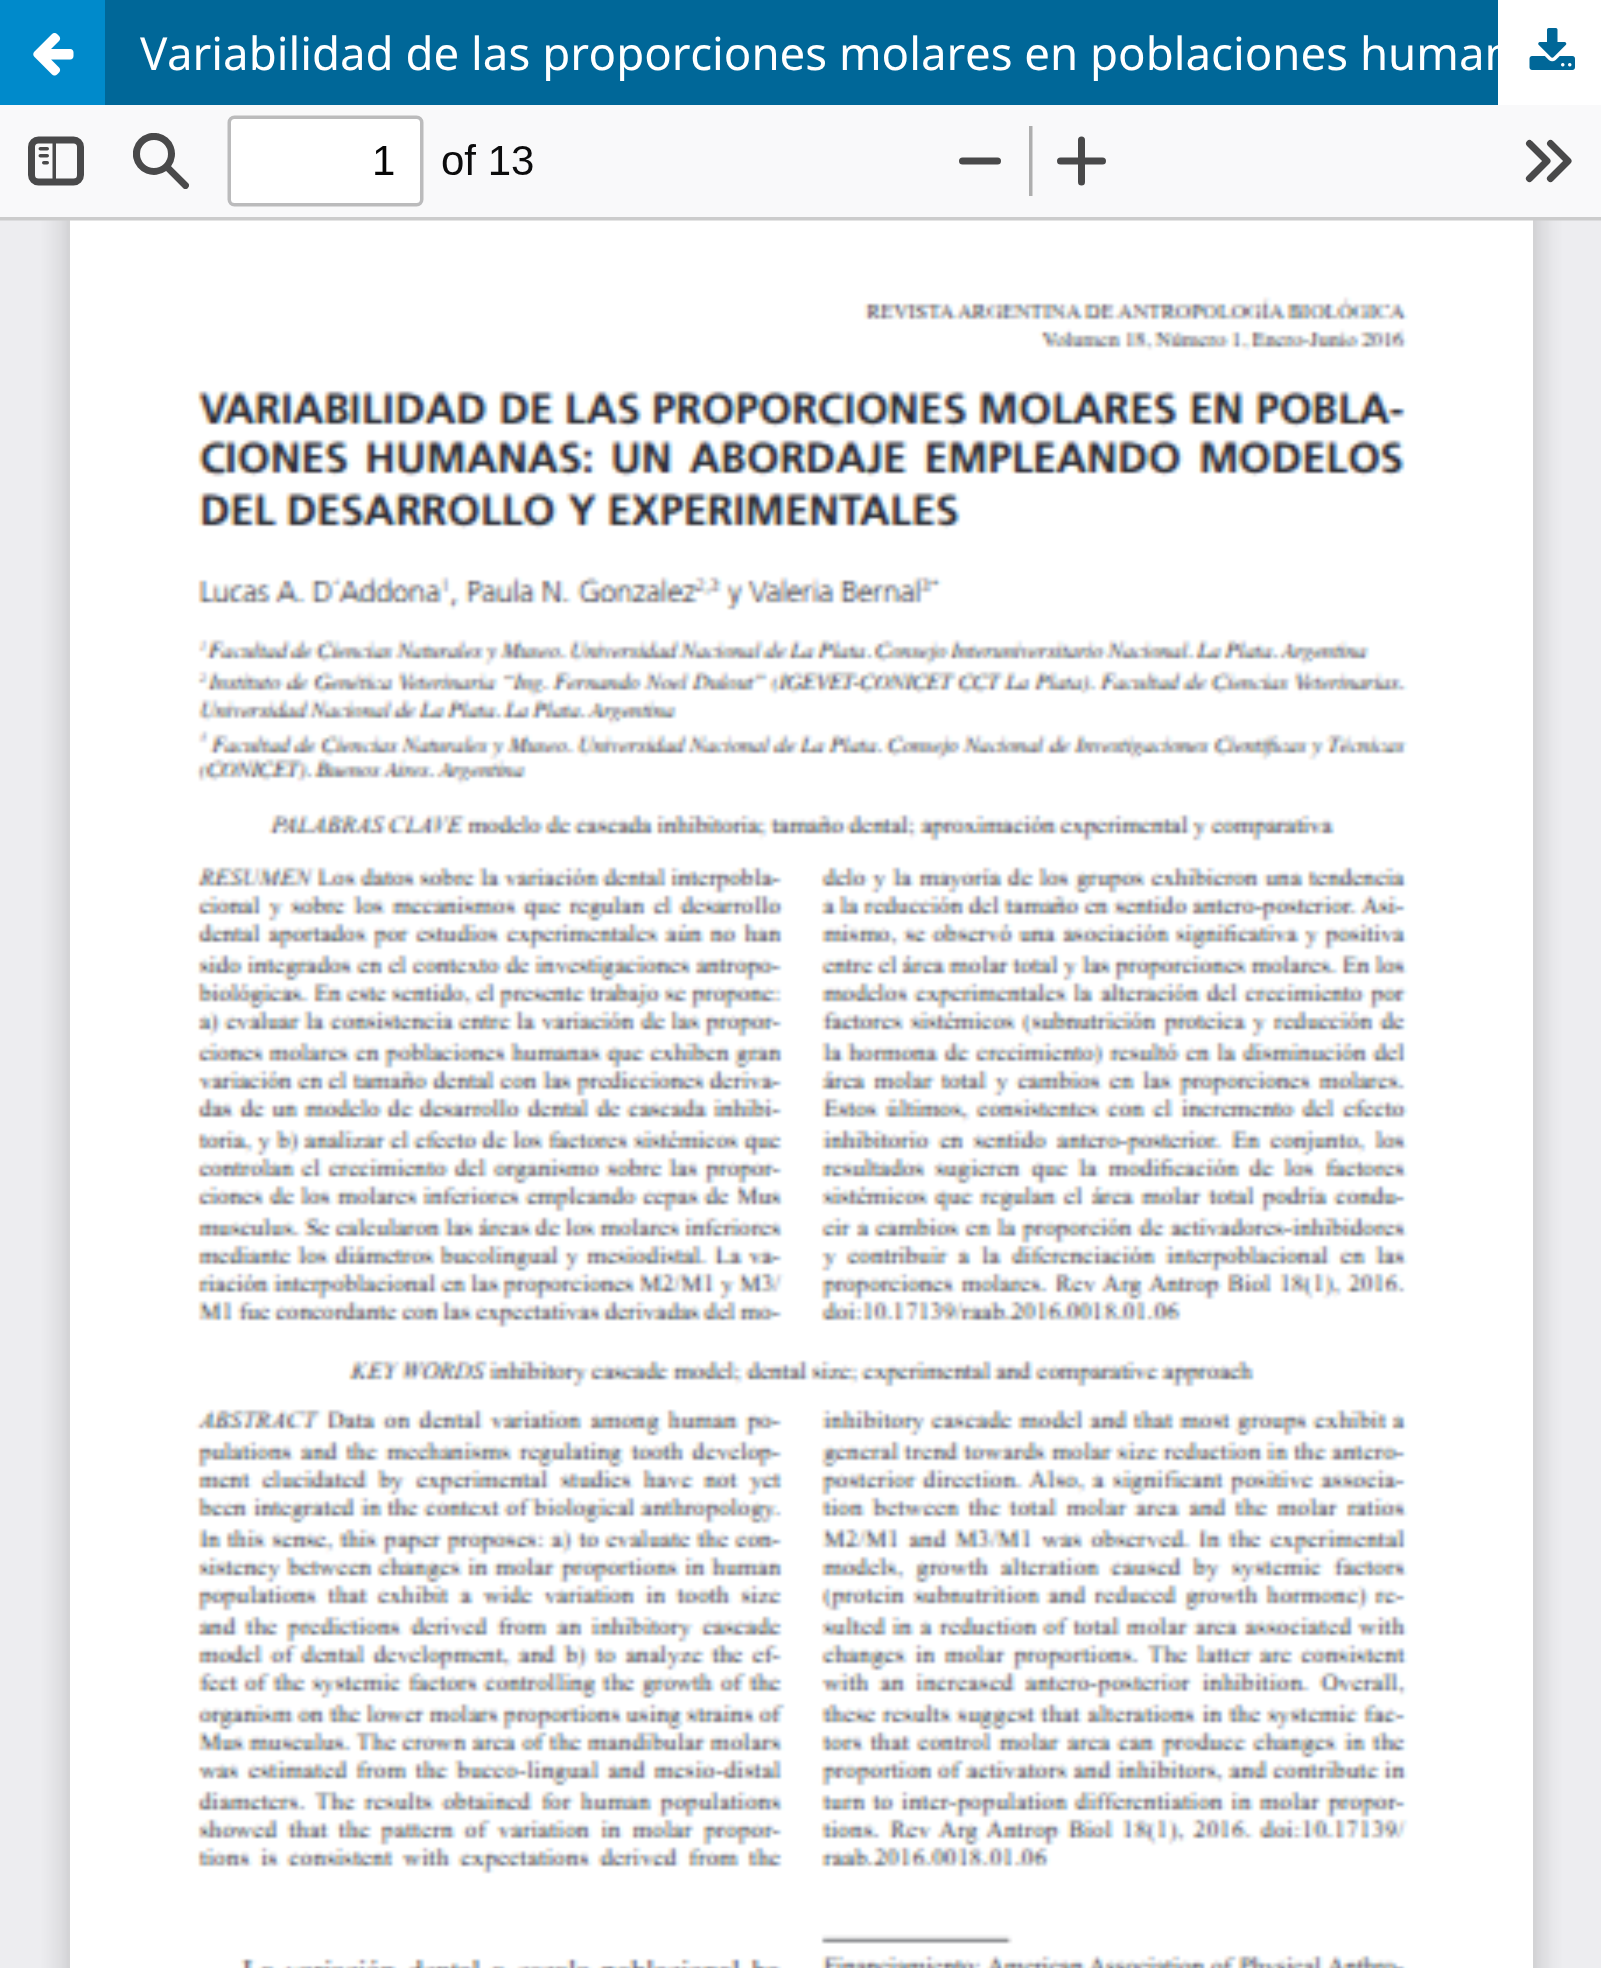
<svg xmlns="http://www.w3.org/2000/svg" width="1601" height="1968">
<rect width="100%" height="100%" fill="#fff"/>
<rect x="105" width="1393" height="105" fill="#006798"/>
<rect width="105" height="105" fill="#008acb"/>
<image x="33" y="33" width="41" height="43" href="media/1.png"/>
<text x="140" y="70" style="font-family:Noto Sans;font-size:45.6px;fill:#fff">Variabilidad de las proporciones molares en poblaciones human</text>
<image x="1529" y="28" width="46" height="42" href="media/2.png"/>
<image x="0" y="105" width="1601" height="1863" href="media/3.png"/>
</svg>
